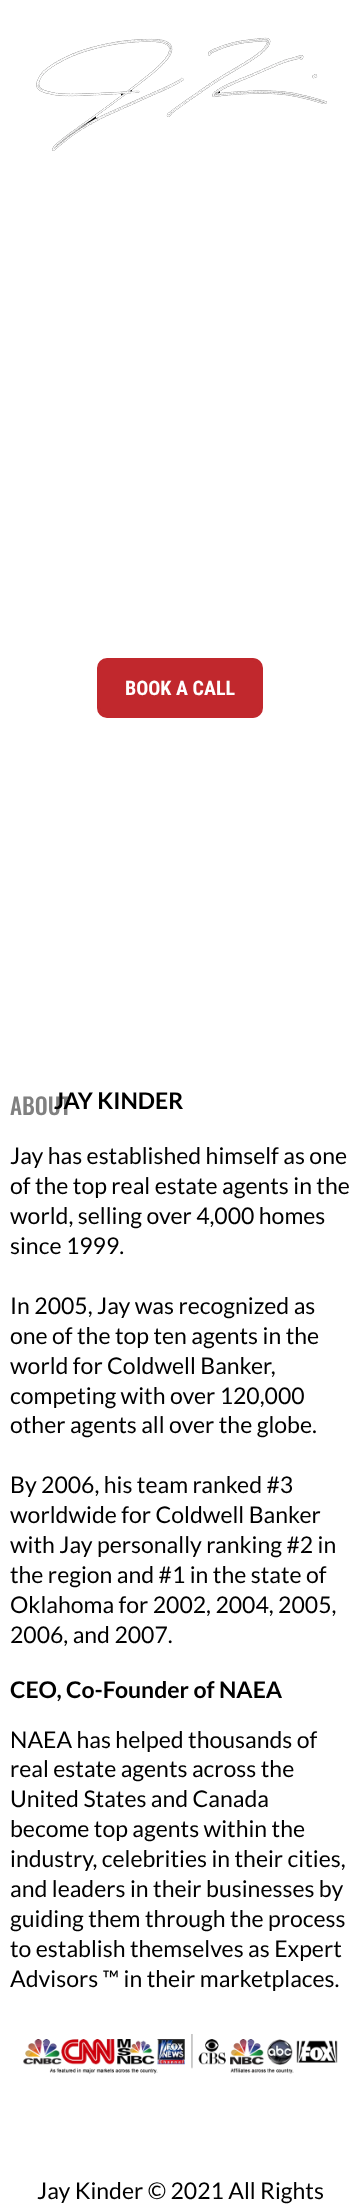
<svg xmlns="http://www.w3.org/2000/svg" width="360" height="2211">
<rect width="100%" height="100%" fill="#fff"/>
<image x="36" y="37" width="291" height="114" href="media/1.png"/>
<rect x="98.5" y="659.5" width="163" height="57" rx="8.5" fill="#c1282d" stroke="#c1282d" stroke-width="3"/>
<text x="125" y="695" style="font-family:Roboto Condensed;font-size:20px;font-weight:bold;fill:#fff">BOOK A CALL</text>
<text x="10" y="1115" style="font-family:Oswald;font-size:23px;font-weight:500;fill:#808080">ABOUT</text>
<text x="54" y="1109" style="font-family:Lato;font-size:23px;font-weight:bold;fill:#000">JAY KINDER</text>
<text x="10" y="1164" style="font-family:Lato;font-size:23px;fill:#000">Jay has established himself as one</text>
<text x="10" y="1194" style="font-family:Lato;font-size:23px;fill:#000">of the top real estate agents in the</text>
<text x="10" y="1224" style="font-family:Lato;font-size:23px;fill:#000">world, selling over 4,000 homes</text>
<text x="10" y="1254" style="font-family:Lato;font-size:23px;fill:#000">since 1999.</text>
<text x="10" y="1314" style="font-family:Lato;font-size:23px;fill:#000">In 2005, Jay was recognized as</text>
<text x="10" y="1344" style="font-family:Lato;font-size:23px;fill:#000">one of the top ten agents in the</text>
<text x="10" y="1374" style="font-family:Lato;font-size:23px;fill:#000">world for Coldwell Banker,</text>
<text x="10" y="1404" style="font-family:Lato;font-size:23px;fill:#000">competing with over 120,000</text>
<text x="10" y="1433" style="font-family:Lato;font-size:23px;fill:#000">other agents all over the globe.</text>
<text x="10" y="1493" style="font-family:Lato;font-size:23px;fill:#000">By 2006, his team ranked #3</text>
<text x="10" y="1523" style="font-family:Lato;font-size:23px;fill:#000">worldwide for Coldwell Banker</text>
<text x="10" y="1553" style="font-family:Lato;font-size:23px;fill:#000">with Jay personally ranking #2 in</text>
<text x="10" y="1583" style="font-family:Lato;font-size:23px;fill:#000">the region and #1 in the state of</text>
<text x="10" y="1613" style="font-family:Lato;font-size:23px;fill:#000">Oklahoma for 2002, 2004, 2005,</text>
<text x="10" y="1643" style="font-family:Lato;font-size:23px;fill:#000">2006, and 2007.</text>
<text x="10" y="1698" style="font-family:Lato;font-size:23px;font-weight:bold;fill:#000">CEO, Co-Founder of NAEA</text>
<text x="10" y="1748" style="font-family:Lato;font-size:23px;fill:#000">NAEA has helped thousands of</text>
<text x="10" y="1777" style="font-family:Lato;font-size:23px;fill:#000">real estate agents across the</text>
<text x="10" y="1807" style="font-family:Lato;font-size:23px;fill:#000">United States and Canada</text>
<text x="10" y="1837" style="font-family:Lato;font-size:23px;fill:#000">become top agents within the</text>
<text x="10" y="1867" style="font-family:Lato;font-size:23px;fill:#000">industry, celebrities in their cities,</text>
<text x="10" y="1897" style="font-family:Lato;font-size:23px;fill:#000">and leaders in their businesses by</text>
<text x="10" y="1927" style="font-family:Lato;font-size:23px;fill:#000">guiding them through the process</text>
<text x="10" y="1957" style="font-family:Lato;font-size:23px;fill:#000">to establish themselves as Expert</text>
<text x="10" y="1987" style="font-family:Lato;font-size:23px;fill:#000">Advisors ™ in their marketplaces.</text>
<image x="23" y="2034" width="315" height="40" href="media/2.png"/>
<text x="37" y="2199" style="font-family:Lato;font-size:23px;fill:#000">Jay Kinder © 2021 All Rights</text>
</svg>
